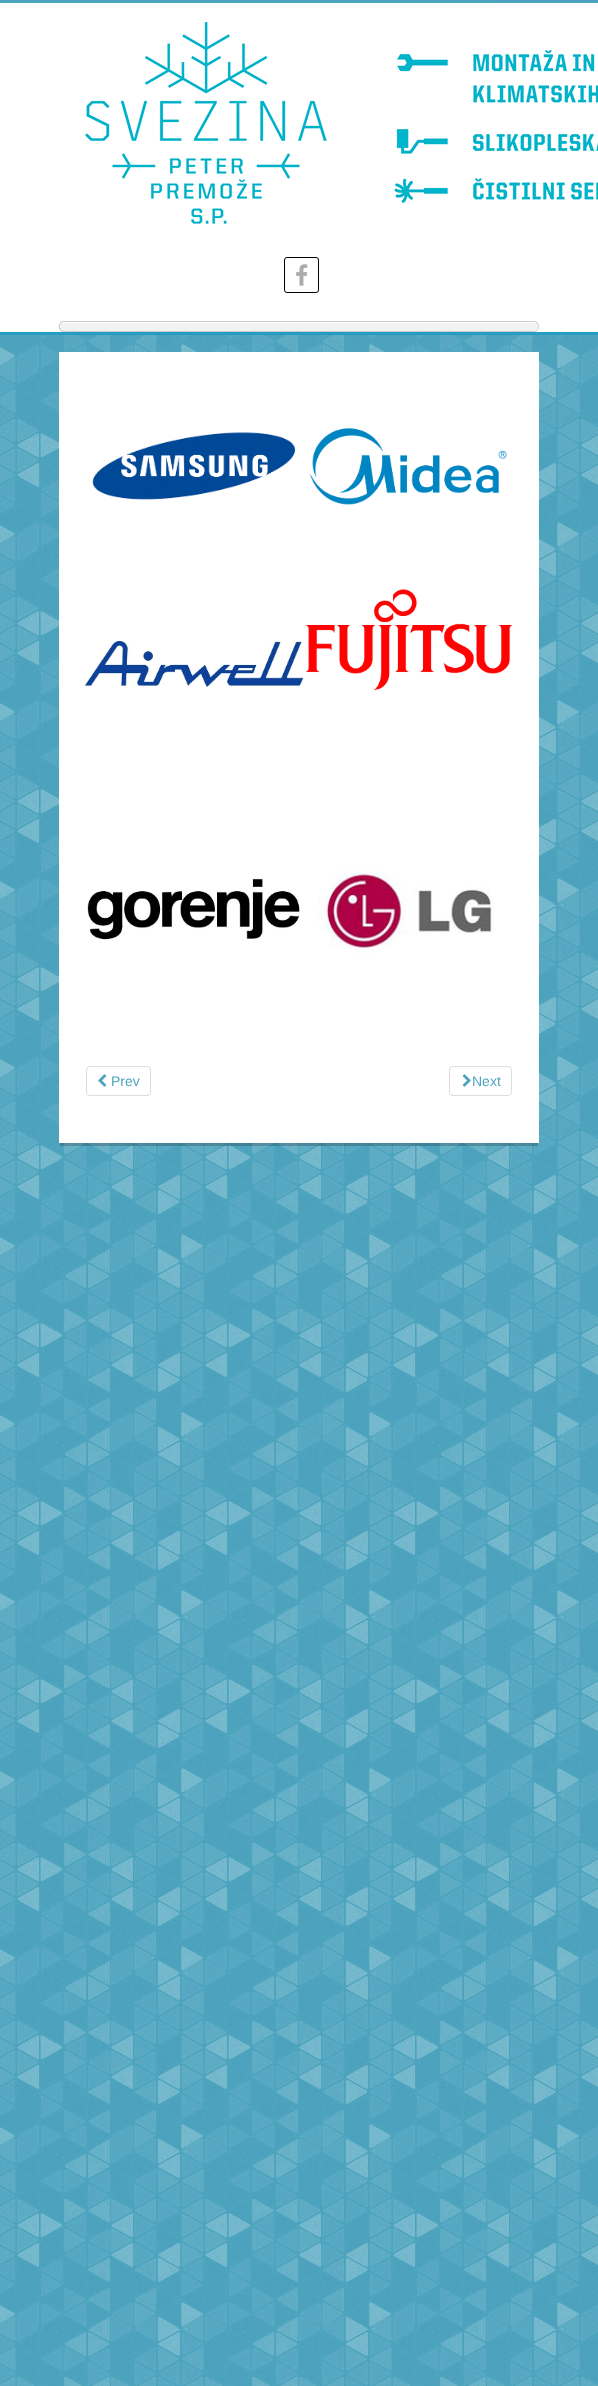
<svg xmlns="http://www.w3.org/2000/svg" width="598" height="2386">
<defs>
<linearGradient id="g1" gradientUnits="userSpaceOnUse" x1="0" y1="1.5" x2="598" y2="1.5"><stop offset="0" stop-color="#4da4bf"/><stop offset="1" stop-color="#4da1bf"/></linearGradient>
</defs>
<rect width="100%" height="100%" fill="#4da4bf"/>
<image x="0" y="335" width="598" height="2051" href="media/1.png"/>
<rect y="3" width="598" height="329" fill="#fff"/>
<rect x="498" width="100" height="3" fill="url(#g1)"/>
<image x="85" y="22" width="513" height="202" href="media/2.png"/>
<rect x="284.5" y="257.5" width="34" height="35" rx="2.5" fill="none" stroke="#000"/>
<image x="296" y="264" width="12" height="22" href="media/3.png"/>
<rect x="59" y="321" width="480" height="11" rx="5" fill="#f2f2f2"/>
<path d="M64 323h471l2 1l1 3l-1-4l-2-2h-471c-3 0-4 3-4 6c0-2 2-4 4-4z" fill="#fff"/>
<path d="M64 322h470c3 0 4 3 4 5c0-3-1-6-4-6h-470c-3 0-4 3-4 5c0-2 2-4 4-4z" fill="#cbcbcb"/>
<path d="M64 321h470c2 0 3 1 4 2c2 4 0 9-4 9h-470c-7 0-7-11 0-11zm0 0h470c3 0 4 3 4 5c0 3-1 5-4 5h-470c-6 0-5-10 0-10z" fill="#cbcbcb" fill-rule="evenodd"/>
<rect y="332" width="598" height="3" fill="#269cc1"/>
<rect x="60" y="357" width="478" height="789" fill="#00000033" filter="blur(0.5px)"/>
<rect x="59" y="352" width="480" height="791" fill="#fff"/>
<image x="92" y="432" width="204" height="68" href="media/4.png"/>
<image x="310" y="428" width="197" height="77" href="media/5.png"/>
<image x="85" y="641" width="218" height="46" href="media/6.png"/>
<image x="305" y="589" width="208" height="102" href="media/7.png"/>
<image x="87" y="878" width="213" height="62" href="media/8.png"/>
<image x="318" y="871" width="177" height="88" href="media/9.png"/>
<rect x="86.5" y="1066.5" width="64" height="29" rx="3.5" fill="none" stroke="#ddd"/>
<image x="98" y="1074" width="9" height="13" href="media/10.png"/>
<text x="111" y="1086" style="font-family:Liberation Sans;font-size:14px;fill:#4da4bf">Prev</text>
<rect x="449.5" y="1066.5" width="62" height="29" rx="3.5" fill="none" stroke="#ddd"/>
<image x="462" y="1074" width="9" height="13" href="media/11.png"/>
<text x="472" y="1086" style="font-family:Liberation Sans;font-size:14px;fill:#4da4bf">Next</text>
</svg>
